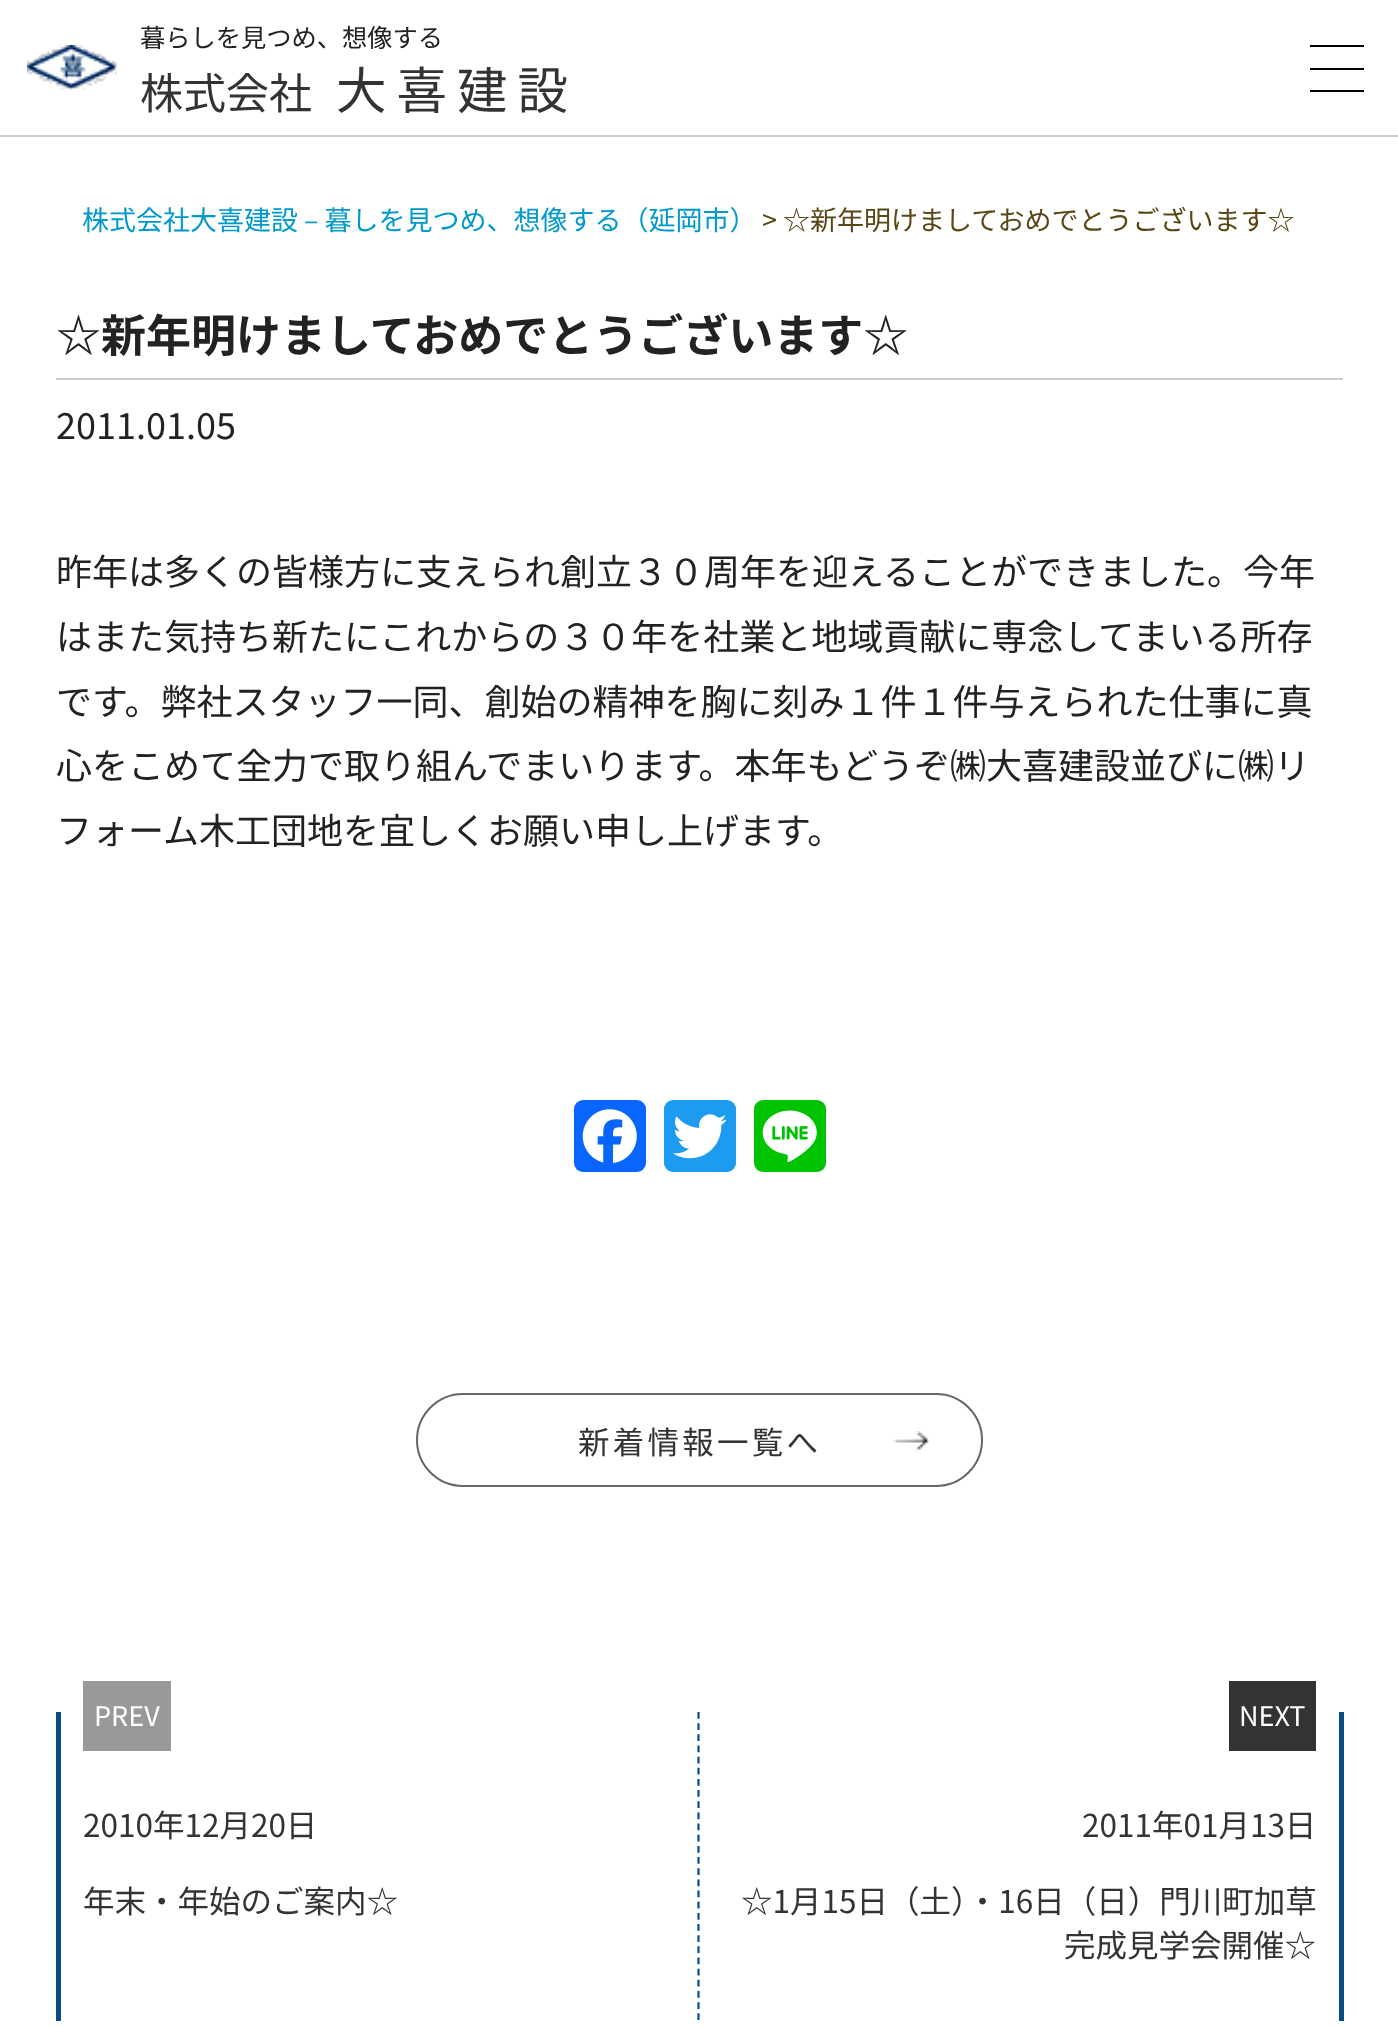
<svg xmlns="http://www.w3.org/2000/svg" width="1398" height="2027">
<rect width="100%" height="100%" fill="#fff"/>
<rect y="135" width="1398" height="2" fill="#ccc"/>
<image x="27" y="45" width="90" height="45" href="media/1.png"/>
<text x="140" y="47" style="font-family:Noto Sans JP;font-size:25.25px;fill:#222">暮らしを見つめ、想像する</text>
<text x="140" y="109" style="font-family:Noto Sans JP;font-size:43px;fill:#333">株式会社</text>
<text x="336" y="109" style="font-family:Noto Sans JP;font-size:50.5px;letter-spacing:10px;fill:#333">大喜建設</text>
<rect x="1310" y="68" width="54" height="2" fill="#000"/>
<rect x="1310" y="45" width="54" height="2" fill="#000"/>
<rect x="1310" y="90" width="54" height="2" fill="#000"/>
<text x="82" y="230" style="font-family:Noto Sans JP;font-size:27px;fill:#09c">株式会社大喜建設 – 暮しを見つめ、想像する（延岡市）</text>
<text x="762" y="230" style="font-family:Noto Sans JP;font-size:27px;fill:#594615">&gt; ☆新年明けましておめでとうございます☆</text>
<rect x="56" y="378" width="1287" height="2" fill="#ccc"/>
<text x="56" y="352" style="font-family:Noto Sans JP;font-size:45px;font-weight:bold;fill:#222">☆新年明けましておめでとうございます☆</text>
<text x="56" y="439" style="font-family:Noto Sans JP;font-size:36px;fill:#222">2011.01.05</text>
<text x="56" y="585" style="font-family:Noto Sans JP;font-size:36px;fill:#222">昨年は多くの皆様方に支えられ創立３０周年を迎えることができました。今年</text>
<text x="56" y="650" style="font-family:Noto Sans JP;font-size:36px;fill:#222">はまた気持ち新たにこれからの３０年を社業と地域貢献に専念してまいる所存</text>
<text x="56" y="715" style="font-family:Noto Sans JP;font-size:36px;fill:#222">です。弊社スタッフ一同、創始の精神を胸に刻み１件１件与えられた仕事に真</text>
<text x="56" y="779" style="font-family:Noto Sans JP;font-size:36px;fill:#222">心をこめて全力で取り組んでまいります。本年もどうぞ㈱大喜建設並びに㈱リ</text>
<text x="56" y="844" style="font-family:Noto Sans JP;font-size:36px;fill:#222">フォーム木工団地を宜しくお願い申し上げます。</text>
<rect x="574" y="1100" width="72" height="72" rx="9" fill="#0866ff"/>
<image x="582" y="1109" width="55" height="54" href="media/2.png"/>
<rect x="664" y="1100" width="72" height="72" rx="9" fill="#1d9bf0"/>
<image x="673" y="1114" width="54" height="45" href="media/3.png"/>
<rect x="754" y="1100" width="72" height="72" rx="9" fill="#00c300"/>
<image x="762" y="1110" width="55" height="52" href="media/4.png"/>
<image x="893" y="1431" width="37" height="20" href="media/5.png"/>
<rect x="417" y="1394" width="565" height="92" rx="46" fill="none" stroke="#666" stroke-width="2"/>
<text x="578" y="1454" style="font-family:Noto Sans JP;font-size:31.5px;letter-spacing:3.25px;fill:#333">新着情報一覧へ</text>
<path d="M698.5 1712v308.5" fill="none" stroke="#064d87" stroke-width="2.2" stroke-dasharray="6.75 4.41"/>
<rect x="56" y="1712" width="5" height="309" fill="#064d87"/>
<rect x="83" y="1681" width="88" height="70" fill="#999"/>
<text x="94" y="1726" style="font-family:Noto Sans JP;font-size:27px;fill:#fff">PREV</text>
<text x="83" y="1837" style="font-family:Noto Sans JP;font-size:31.5px;fill:#333">2010年12月20日</text>
<text x="83" y="1913" style="font-family:Noto Sans JP;font-size:31.5px;fill:#333">年末・年始のご案内☆</text>
<rect x="1339" y="1712" width="5" height="309" fill="#064d87"/>
<rect x="1229" y="1681" width="87" height="70" fill="#333"/>
<text x="1239" y="1726" style="font-family:Noto Sans JP;font-size:27px;fill:#fff">NEXT</text>
<text x="1082" y="1837" style="font-family:Noto Sans JP;font-size:31.5px;fill:#333">2011年01月13日</text>
<text x="741" y="1913" style="font-family:Noto Sans JP;font-size:31.5px;fill:#333">☆1月15日（土）・16日（日）門川町加草</text>
<text x="1064" y="1957" style="font-family:Noto Sans JP;font-size:31.5px;fill:#333">完成見学会開催☆</text>
</svg>
